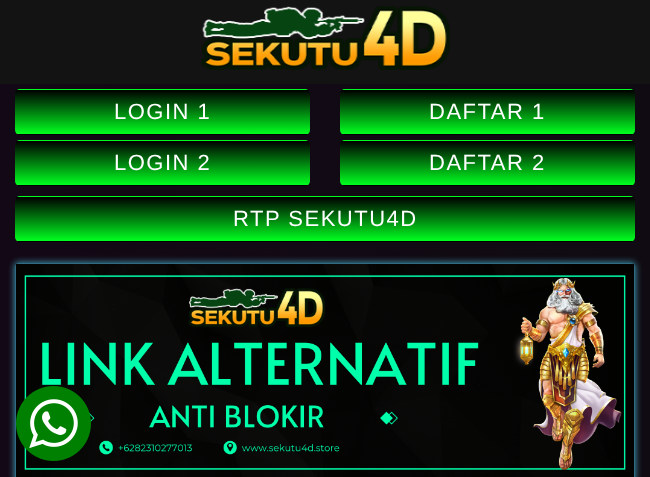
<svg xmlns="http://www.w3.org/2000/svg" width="650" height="477">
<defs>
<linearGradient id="g1" gradientUnits="userSpaceOnUse" x1="0" y1="261" x2="650" y2="261"><stop offset="0" stop-color="#130815"/><stop offset="1" stop-color="#100b12"/></linearGradient>
<clipPath id="clip1"><rect x="15" y="89" width="295" height="46" rx="5"/></clipPath>
<linearGradient id="g2" gradientUnits="userSpaceOnUse" x1="163" y1="46" x2="163" y2="90"><stop offset="0" stop-color="#000"/><stop offset="1" stop-color="#00ff1f"/></linearGradient>
<linearGradient id="g3" gradientUnits="userSpaceOnUse" x1="163" y1="90" x2="163" y2="134"><stop offset="0" stop-color="#000"/><stop offset="1" stop-color="#00ff1f"/></linearGradient>
<linearGradient id="g4" gradientUnits="userSpaceOnUse" x1="163" y1="134" x2="163" y2="178"><stop offset="0" stop-color="#000"/><stop offset="1" stop-color="#00ff1f"/></linearGradient>
<clipPath id="clip2"><rect x="340" y="89" width="295" height="46" rx="5"/></clipPath>
<linearGradient id="g5" gradientUnits="userSpaceOnUse" x1="488" y1="46" x2="488" y2="90"><stop offset="0" stop-color="#000"/><stop offset="1" stop-color="#00ff1f"/></linearGradient>
<linearGradient id="g6" gradientUnits="userSpaceOnUse" x1="488" y1="90" x2="488" y2="134"><stop offset="0" stop-color="#000"/><stop offset="1" stop-color="#00ff1f"/></linearGradient>
<linearGradient id="g7" gradientUnits="userSpaceOnUse" x1="488" y1="134" x2="488" y2="178"><stop offset="0" stop-color="#000"/><stop offset="1" stop-color="#00ff1f"/></linearGradient>
<clipPath id="clip3"><rect x="15" y="140" width="295" height="46" rx="5"/></clipPath>
<linearGradient id="g8" gradientUnits="userSpaceOnUse" x1="163" y1="97" x2="163" y2="141"><stop offset="0" stop-color="#000"/><stop offset="1" stop-color="#00ff1f"/></linearGradient>
<linearGradient id="g9" gradientUnits="userSpaceOnUse" x1="163" y1="141" x2="163" y2="185"><stop offset="0" stop-color="#000"/><stop offset="1" stop-color="#00ff1f"/></linearGradient>
<linearGradient id="g10" gradientUnits="userSpaceOnUse" x1="163" y1="185" x2="163" y2="229"><stop offset="0" stop-color="#000"/><stop offset="1" stop-color="#00ff1f"/></linearGradient>
<clipPath id="clip4"><rect x="340" y="140" width="295" height="46" rx="5"/></clipPath>
<linearGradient id="g11" gradientUnits="userSpaceOnUse" x1="488" y1="97" x2="488" y2="141"><stop offset="0" stop-color="#000"/><stop offset="1" stop-color="#00ff1f"/></linearGradient>
<linearGradient id="g12" gradientUnits="userSpaceOnUse" x1="488" y1="141" x2="488" y2="185"><stop offset="0" stop-color="#000"/><stop offset="1" stop-color="#00ff1f"/></linearGradient>
<linearGradient id="g13" gradientUnits="userSpaceOnUse" x1="488" y1="185" x2="488" y2="229"><stop offset="0" stop-color="#000"/><stop offset="1" stop-color="#00ff1f"/></linearGradient>
<clipPath id="clip5"><rect x="15" y="196" width="620" height="46" rx="5"/></clipPath>
<linearGradient id="g14" gradientUnits="userSpaceOnUse" x1="325" y1="153" x2="325" y2="197"><stop offset="0" stop-color="#000"/><stop offset="1" stop-color="#00ff1f"/></linearGradient>
<linearGradient id="g15" gradientUnits="userSpaceOnUse" x1="325" y1="197" x2="325" y2="241"><stop offset="0" stop-color="#000"/><stop offset="1" stop-color="#00ff1f"/></linearGradient>
<linearGradient id="g16" gradientUnits="userSpaceOnUse" x1="325" y1="241" x2="325" y2="285"><stop offset="0" stop-color="#000"/><stop offset="1" stop-color="#00ff1f"/></linearGradient>
</defs>
<rect width="100%" height="100%" fill="#fff"/>
<rect y="84" width="650" height="393" fill="url(#g1)"/>
<rect width="650" height="84" fill="#131313"/>
<image x="201" y="6" width="249" height="64" href="media/1.png"/>
<g clip-path="url(#clip1)">
<rect x="15" y="89" width="295" height="1" fill="url(#g2)"/>
<rect x="15" y="90" width="295" height="44" fill="url(#g3)"/>
<rect x="15" y="134" width="295" height="1" fill="url(#g4)"/>
</g>
<text x="114" y="119" style="font-family:Liberation Sans;font-size:22px;letter-spacing:1.5px;fill:#fff">LOGIN 1</text>
<g clip-path="url(#clip2)">
<rect x="340" y="89" width="295" height="1" fill="url(#g5)"/>
<rect x="340" y="90" width="295" height="44" fill="url(#g6)"/>
<rect x="340" y="134" width="295" height="1" fill="url(#g7)"/>
</g>
<text x="429" y="119" style="font-family:Liberation Sans;font-size:22px;letter-spacing:1.5px;fill:#fff">DAFTAR 1</text>
<g clip-path="url(#clip3)">
<rect x="15" y="140" width="295" height="1" fill="url(#g8)"/>
<rect x="15" y="141" width="295" height="44" fill="url(#g9)"/>
<rect x="15" y="185" width="295" height="1" fill="url(#g10)"/>
</g>
<text x="114" y="170" style="font-family:Liberation Sans;font-size:22px;letter-spacing:1.5px;fill:#fff">LOGIN 2</text>
<g clip-path="url(#clip4)">
<rect x="340" y="140" width="295" height="1" fill="url(#g11)"/>
<rect x="340" y="141" width="295" height="44" fill="url(#g12)"/>
<rect x="340" y="185" width="295" height="1" fill="url(#g13)"/>
</g>
<text x="429" y="170" style="font-family:Liberation Sans;font-size:22px;letter-spacing:1.5px;fill:#fff">DAFTAR 2</text>
<g clip-path="url(#clip5)">
<rect x="15" y="196" width="620" height="1" fill="url(#g14)"/>
<rect x="15" y="197" width="620" height="44" fill="url(#g15)"/>
<rect x="15" y="241" width="620" height="1" fill="url(#g16)"/>
</g>
<text x="233" y="226" style="font-family:Liberation Sans;font-size:22px;letter-spacing:1.5px;fill:#fff">RTP SEKUTU4D</text>
<rect x="14" y="262" width="622" height="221" rx="5" fill="#39879e" filter="blur(3px)"/>
<rect x="15.5" y="263.5" width="619" height="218" rx="3.5" fill="none" stroke="#2d6c83"/>
<image x="16" y="264" width="618" height="213" href="media/2.png"/>
<image x="16" y="386" width="75" height="75" href="media/3.png"/>
</svg>
